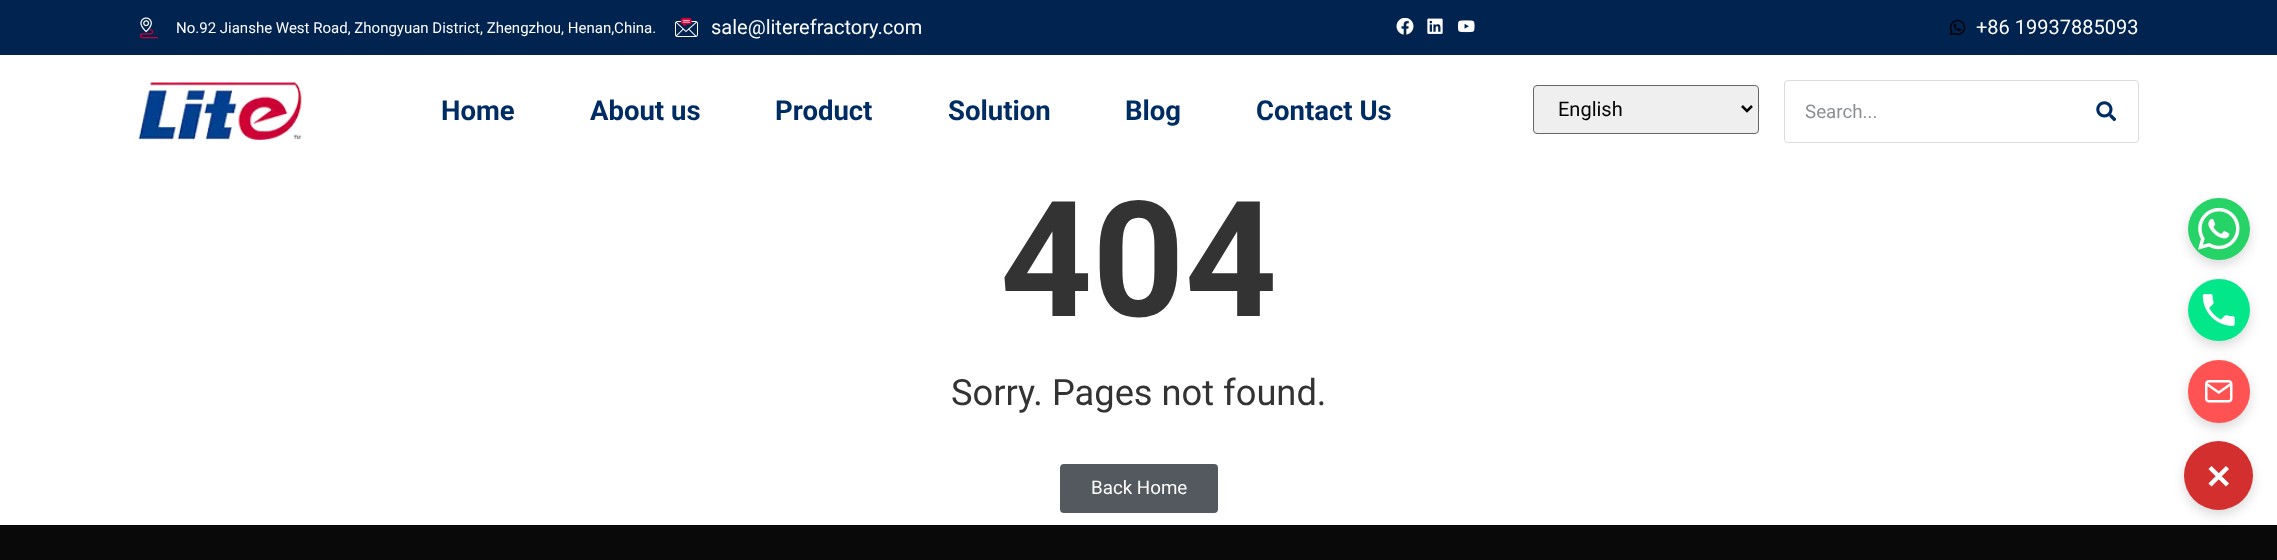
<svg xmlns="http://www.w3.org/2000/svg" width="2277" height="560">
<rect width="100%" height="100%" fill="#fff"/>
<rect width="2277" height="55" fill="#00234f"/>
<image x="139" y="17" width="20" height="22" href="media/1.png"/>
<text x="176" y="33" style="font-family:Roboto;font-size:15px;fill:#fcfcfc">No.92 Jianshe West Road, Zhongyuan District, Zhengzhou, Henan,China.</text>
<image x="675" y="17" width="23" height="20" href="media/2.png"/>
<text x="711" y="34" style="font-family:Roboto;font-size:20px;fill:#fcfcfc">sale@literefractory.com</text>
<image x="1396" y="18" width="18" height="17" href="media/3.png"/>
<image x="1427" y="18" width="16" height="16" href="media/4.png"/>
<image x="1458" y="20" width="17" height="13" href="media/5.png"/>
<image x="1949" y="19" width="17" height="16" href="media/6.png"/>
<text x="1976" y="34" style="font-family:Roboto;font-size:20px;fill:#fcfcfc">+86 19937885093</text>
<image x="138" y="82" width="164" height="58" href="media/7.png"/>
<text x="441" y="120" style="font-family:Roboto;font-size:27.5px;font-weight:bold;fill:#002c64">Home</text>
<text x="590" y="120" style="font-family:Roboto;font-size:27.5px;font-weight:bold;fill:#002c64">About us</text>
<text x="775" y="120" style="font-family:Roboto;font-size:27.5px;font-weight:bold;fill:#002c64">Product</text>
<text x="948" y="120" style="font-family:Roboto;font-size:27.5px;font-weight:bold;fill:#002c64">Solution</text>
<text x="1125" y="120" style="font-family:Roboto;font-size:27.5px;font-weight:bold;fill:#002c64">Blog</text>
<text x="1256" y="120" style="font-family:Roboto;font-size:27.5px;font-weight:bold;fill:#002c64">Contact Us</text>
<rect x="1533.5" y="85.5" width="225" height="48" rx="3.5" fill="#efefef" stroke="#666"/>
<path d="M1742 106l5 5l5-5" fill="none" stroke="#000" stroke-width="2.5"/>
<text x="1558" y="116" style="font-family:Roboto;font-size:20px;fill:#000">English</text>
<rect x="1784.5" y="80.5" width="354" height="62" rx="3.5" fill="none" stroke="#dbdbdb"/>
<text x="1805" y="118" style="font-family:Roboto;font-size:18.75px;fill:#8c8f93">Search...</text>
<image x="2096" y="101" width="20" height="20" href="media/8.png"/>
<text x="1000" y="316" style="font-family:Roboto;font-size:161px;font-weight:bold;fill:#333">404</text>
<text x="951" y="405" style="font-family:Roboto;font-size:36.25px;fill:#333">Sorry. Pages not found.</text>
<rect x="1060" y="464" width="158" height="49" rx="4" fill="#54595f"/>
<text x="1091" y="494" style="font-family:Roboto;font-size:18.75px;fill:#fcfcfc">Back Home</text>
<rect x="2188" y="203" width="62" height="62" rx="31" fill="#00000026" filter="blur(6px)"/>
<circle cx="2219" cy="229" r="31" fill="#25d366"/>
<image x="2198" y="207" width="42" height="43" href="media/9.png"/>
<rect x="2188" y="284" width="62" height="62" rx="31" fill="#00000026" filter="blur(6px)"/>
<circle cx="2219" cy="310" r="31" fill="#03e78b"/>
<image x="2202" y="294" width="33" height="32" href="media/10.png"/>
<rect x="2188" y="365" width="62" height="63" rx="31" fill="#00000026" filter="blur(6px)"/>
<rect x="2188" y="360" width="62" height="63" rx="31" fill="#ff5252"/>
<image x="2205" y="380" width="28" height="23" href="media/11.png"/>
<rect y="525" width="2277" height="35" fill="#0a0909"/>
<rect x="2184" y="446" width="69" height="69" rx="34.5" fill="#00000026" filter="blur(6px)"/>
<circle cx="2218.5" cy="475.5" r="34.5" fill="#d32f2f"/>
<path d="M2227.5 467.5l-17.5 17.5m0-17.5l17.5 17.5" fill="none" stroke="#fff" stroke-width="4.4"/>
</svg>
